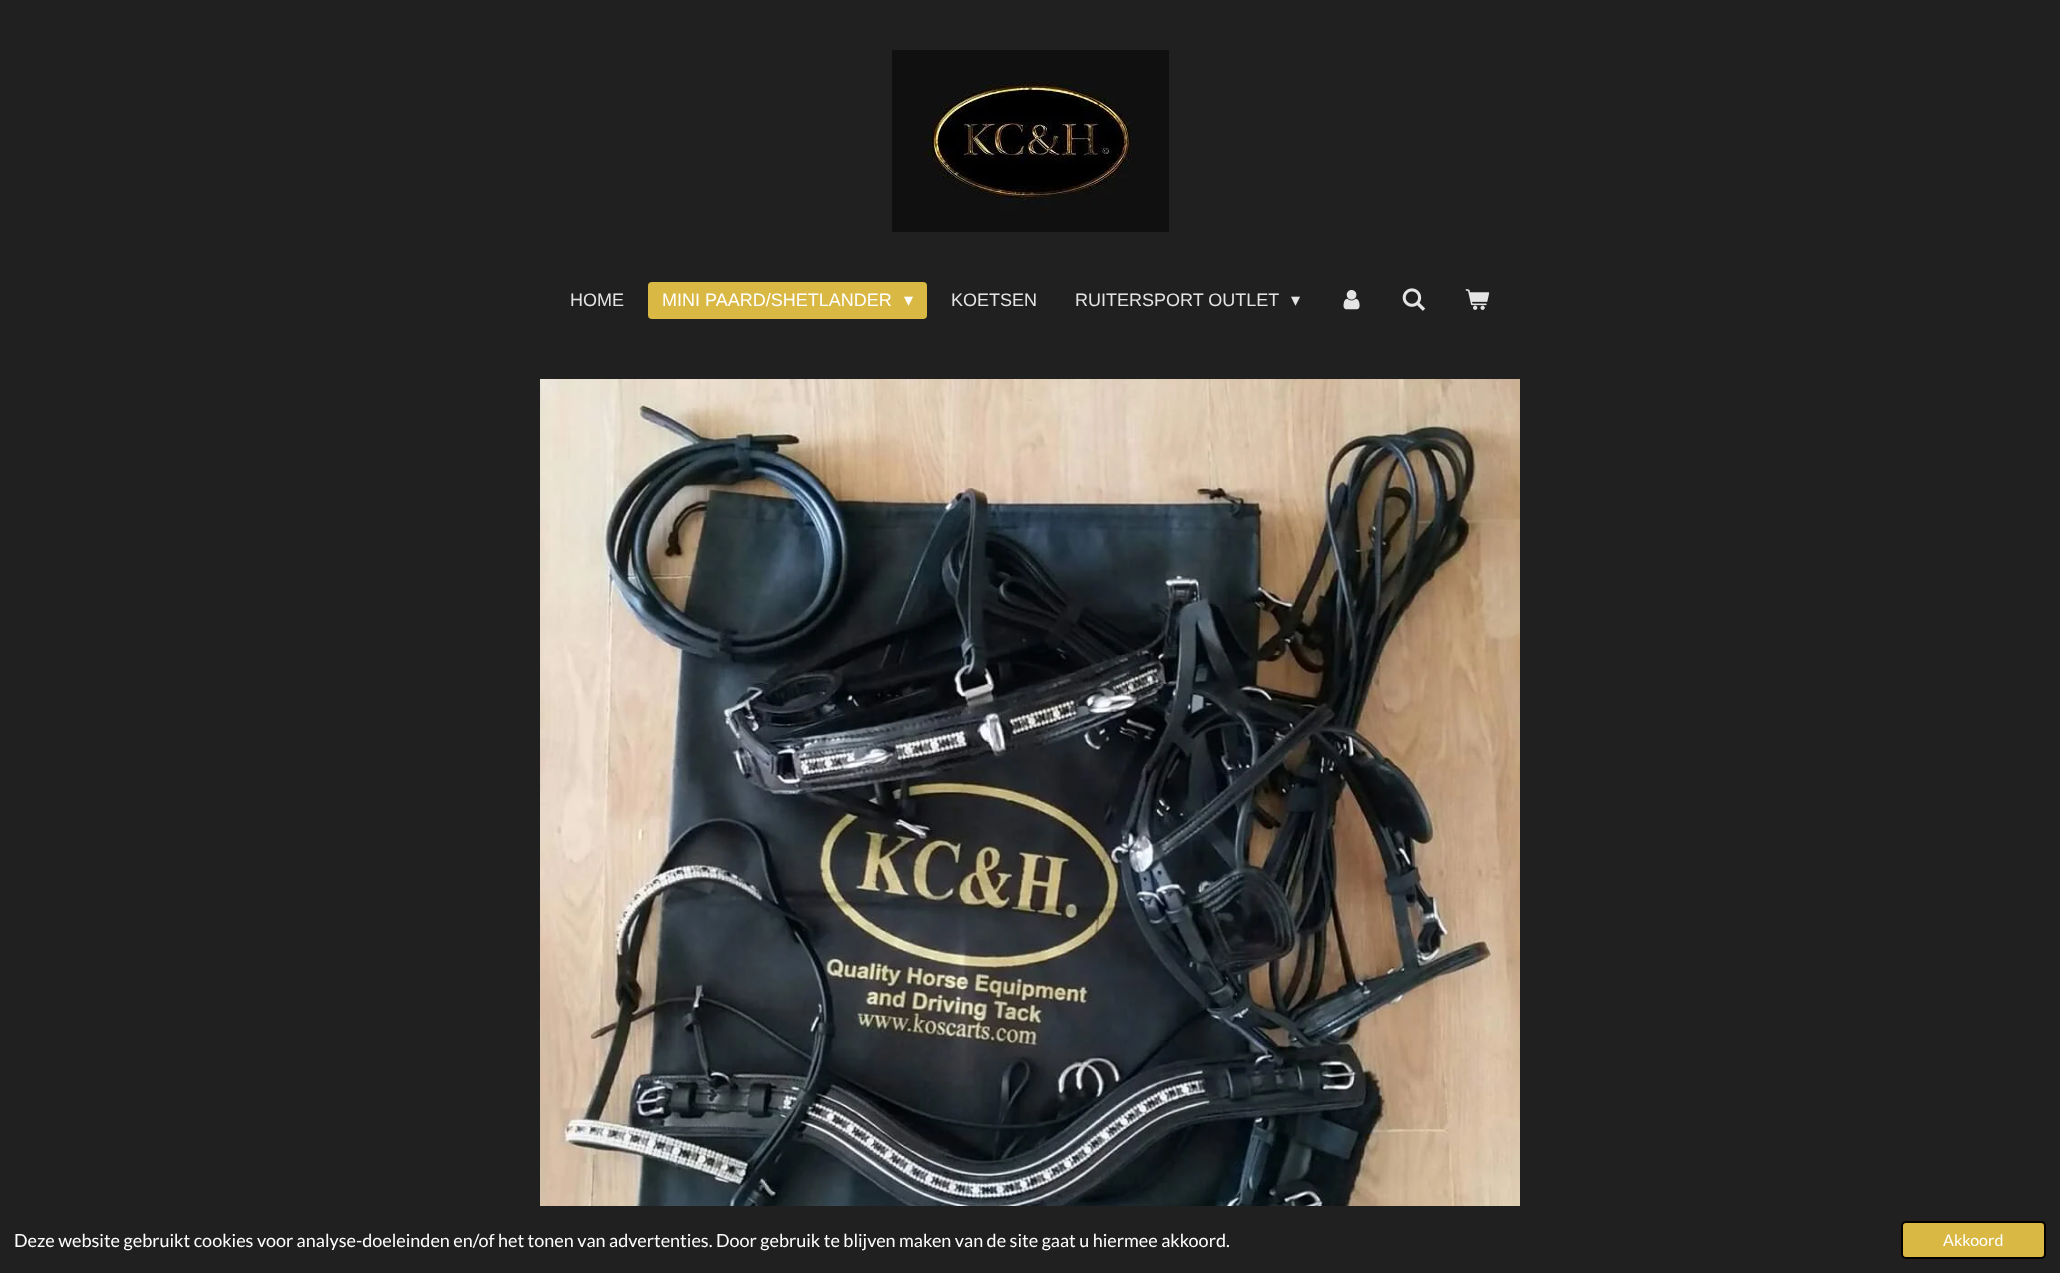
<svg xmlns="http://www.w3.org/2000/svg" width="2060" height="1273">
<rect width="100%" height="100%" fill="#202020"/>
<image x="892" y="50" width="277" height="182" href="media/1.png"/>
<text x="570" y="306" style="font-family:Liberation Sans;font-size:18px;fill:#e4e4e4">HOME</text>
<rect x="648" y="282" width="279" height="37" rx="4" fill="#dab844"/>
<text x="662" y="306" style="font-family:Liberation Sans;font-size:18px;fill:#fff">MINI PAARD/SHETLANDER</text>
<text x="904" y="306" style="font-family:DejaVu Sans;font-size:18px;fill:#fff">▾</text>
<text x="951" y="306" style="font-family:Liberation Sans;font-size:18px;fill:#e4e4e4">KOETSEN</text>
<text x="1075" y="306" style="font-family:Liberation Sans;font-size:18px;fill:#e4e4e4">RUITERSPORT OUTLET</text>
<text x="1291" y="306" style="font-family:DejaVu Sans;font-size:18px;fill:#e4e4e4">▾</text>
<image x="1343" y="290" width="17" height="20" href="media/2.png"/>
<image x="1402" y="288" width="24" height="23" href="media/3.png"/>
<image x="1465" y="289" width="25" height="21" href="media/4.png"/>
<image x="540" y="379" width="980" height="827" href="media/5.png"/>
<text x="14" y="1247" style="font-family:Lato;font-size:18px;fill:#fff">Deze website gebruikt cookies voor analyse-doeleinden en/of het tonen van advertenties. Door gebruik te blijven maken van de site gaat u hiermee akkoord.</text>
<rect x="1902" y="1222" width="143" height="36" rx="4" fill="#dab844" stroke="#000" stroke-width="2"/>
<text x="1943" y="1246" style="font-family:Lato;font-size:16px;fill:#fff">Akkoord</text>
</svg>
